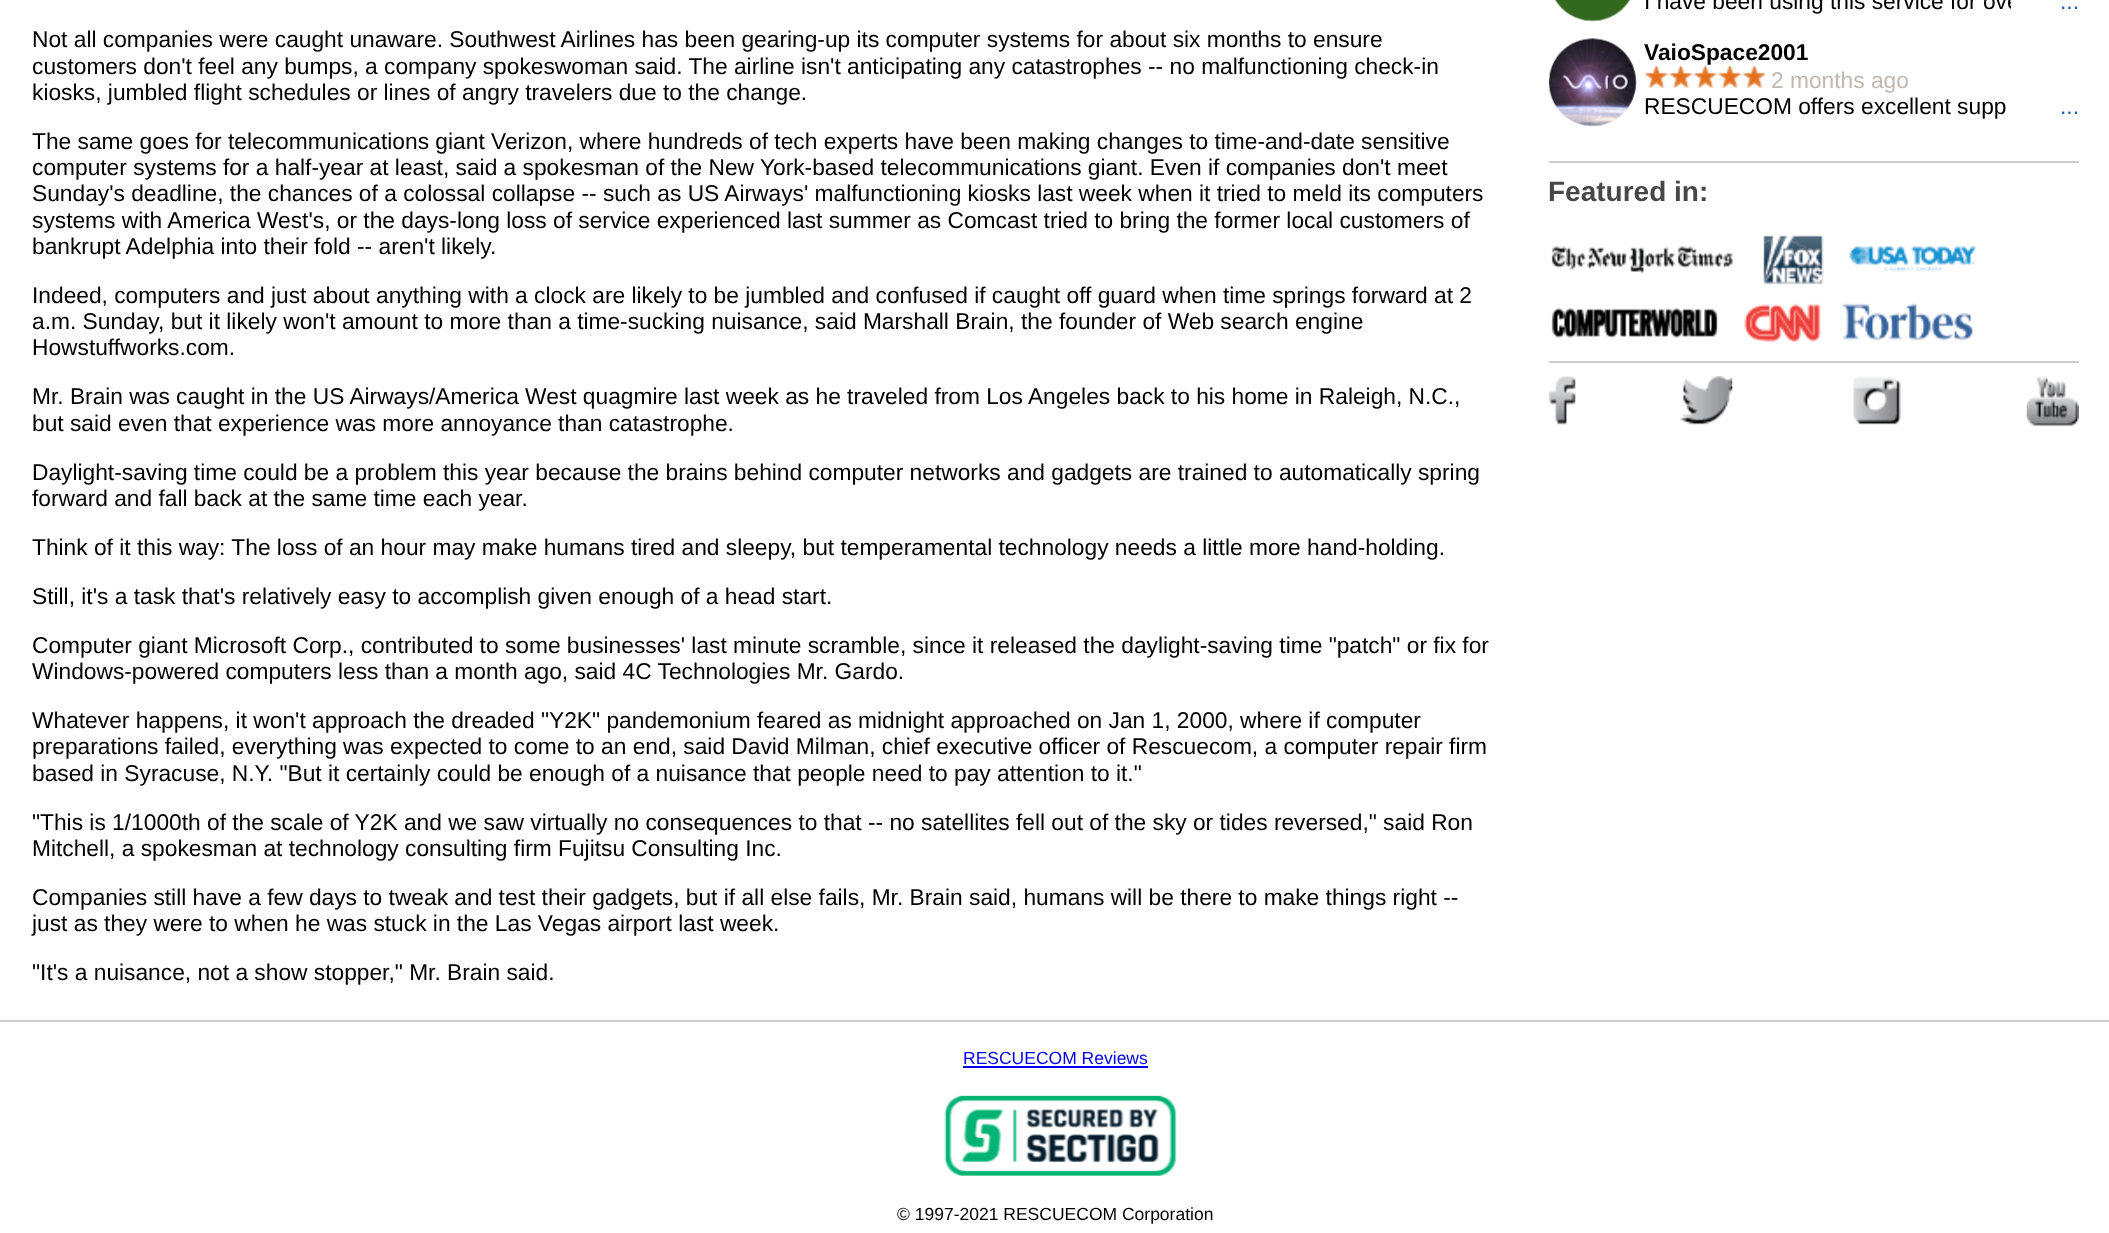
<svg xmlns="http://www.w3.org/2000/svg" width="2109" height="1233">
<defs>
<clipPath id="clip1"><rect x="1645" width="366" height="18"/></clipPath>
</defs>
<rect width="100%" height="100%" fill="#fff"/>
<text x="32" y="47" style="font-family:Liberation Sans;font-size:22.75px;fill:#000">Not all companies were caught unaware. Southwest Airlines has been gearing-up its computer systems for about six months to ensure</text>
<text x="32" y="74" style="font-family:Liberation Sans;font-size:22.75px;fill:#000">customers don't feel any bumps, a company spokeswoman said. The airline isn't anticipating any catastrophes -- no malfunctioning check-in</text>
<text x="32" y="100" style="font-family:Liberation Sans;font-size:22.75px;fill:#000">kiosks, jumbled flight schedules or lines of angry travelers due to the change.</text>
<text x="32" y="149" style="font-family:Liberation Sans;font-size:22.75px;fill:#000">The same goes for telecommunications giant Verizon, where hundreds of tech experts have been making changes to time-and-date sensitive</text>
<text x="32" y="175" style="font-family:Liberation Sans;font-size:22.75px;fill:#000">computer systems for a half-year at least, said a spokesman of the New York-based telecommunications giant. Even if companies don't meet</text>
<text x="32" y="201" style="font-family:Liberation Sans;font-size:22.75px;fill:#000">Sunday's deadline, the chances of a colossal collapse -- such as US Airways' malfunctioning kiosks last week when it tried to meld its computers</text>
<text x="32" y="228" style="font-family:Liberation Sans;font-size:22.75px;fill:#000">systems with America West's, or the days-long loss of service experienced last summer as Comcast tried to bring the former local customers of</text>
<text x="32" y="254" style="font-family:Liberation Sans;font-size:22.75px;fill:#000">bankrupt Adelphia into their fold -- aren't likely.</text>
<text x="32" y="303" style="font-family:Liberation Sans;font-size:22.75px;fill:#000">Indeed, computers and just about anything with a clock are likely to be jumbled and confused if caught off guard when time springs forward at 2</text>
<text x="32" y="329" style="font-family:Liberation Sans;font-size:22.75px;fill:#000">a.m. Sunday, but it likely won't amount to more than a time-sucking nuisance, said Marshall Brain, the founder of Web search engine</text>
<text x="32" y="355" style="font-family:Liberation Sans;font-size:22.75px;fill:#000">Howstuffworks.com.</text>
<text x="32" y="404" style="font-family:Liberation Sans;font-size:22.75px;fill:#000">Mr. Brain was caught in the US Airways/America West quagmire last week as he traveled from Los Angeles back to his home in Raleigh, N.C.,</text>
<text x="32" y="431" style="font-family:Liberation Sans;font-size:22.75px;fill:#000">but said even that experience was more annoyance than catastrophe.</text>
<text x="32" y="480" style="font-family:Liberation Sans;font-size:22.75px;fill:#000">Daylight-saving time could be a problem this year because the brains behind computer networks and gadgets are trained to automatically spring</text>
<text x="32" y="506" style="font-family:Liberation Sans;font-size:22.75px;fill:#000">forward and fall back at the same time each year.</text>
<text x="32" y="555" style="font-family:Liberation Sans;font-size:22.75px;fill:#000">Think of it this way: The loss of an hour may make humans tired and sleepy, but temperamental technology needs a little more hand-holding.</text>
<text x="32" y="604" style="font-family:Liberation Sans;font-size:22.75px;fill:#000">Still, it's a task that's relatively easy to accomplish given enough of a head start.</text>
<text x="32" y="653" style="font-family:Liberation Sans;font-size:22.75px;fill:#000">Computer giant Microsoft Corp., contributed to some businesses' last minute scramble, since it released the daylight-saving time "patch" or fix for</text>
<text x="32" y="679" style="font-family:Liberation Sans;font-size:22.75px;fill:#000">Windows-powered computers less than a month ago, said 4C Technologies Mr. Gardo.</text>
<text x="32" y="728" style="font-family:Liberation Sans;font-size:22.75px;fill:#000">Whatever happens, it won't approach the dreaded "Y2K" pandemonium feared as midnight approached on Jan 1, 2000, where if computer</text>
<text x="32" y="754" style="font-family:Liberation Sans;font-size:22.75px;fill:#000">preparations failed, everything was expected to come to an end, said David Milman, chief executive officer of Rescuecom, a computer repair firm</text>
<text x="32" y="781" style="font-family:Liberation Sans;font-size:22.75px;fill:#000">based in Syracuse, N.Y. "But it certainly could be enough of a nuisance that people need to pay attention to it."</text>
<text x="32" y="830" style="font-family:Liberation Sans;font-size:22.75px;fill:#000">"This is 1/1000th of the scale of Y2K and we saw virtually no consequences to that -- no satellites fell out of the sky or tides reversed," said Ron</text>
<text x="32" y="856" style="font-family:Liberation Sans;font-size:22.75px;fill:#000">Mitchell, a spokesman at technology consulting firm Fujitsu Consulting Inc.</text>
<text x="32" y="905" style="font-family:Liberation Sans;font-size:22.75px;fill:#000">Companies still have a few days to tweak and test their gadgets, but if all else fails, Mr. Brain said, humans will be there to make things right --</text>
<text x="32" y="931" style="font-family:Liberation Sans;font-size:22.75px;fill:#000">just as they were to when he was stuck in the Las Vegas airport last week.</text>
<text x="32" y="980" style="font-family:Liberation Sans;font-size:22.75px;fill:#000">"It's a nuisance, not a show stopper," Mr. Brain said.</text>
<image x="1554" y="0" width="76" height="22" href="media/1.png"/>
<g clip-path="url(#clip1)">
<text x="1644" y="9" style="font-family:Liberation Sans;font-size:22.75px;fill:#000">I have been using this service for ove</text>
</g>
<text x="2060" y="9" style="font-family:Liberation Sans;font-size:22.75px;fill:#1d59be">...</text>
<image x="1549" y="38" width="88" height="89" href="media/2.png"/>
<text x="1644" y="60" style="font-family:Liberation Sans;font-size:22.75px;font-weight:bold;fill:#000">VaioSpace2001</text>
<image x="1645" y="66" width="120" height="22" href="media/3.png"/>
<image x="1645" y="65" width="121" height="23" href="media/4.png"/>
<text x="1771" y="88" style="font-family:Liberation Sans;font-size:22.75px;fill:#c1b9b1">2 months ago</text>
<text x="1644" y="114" style="font-family:Liberation Sans;font-size:22.75px;fill:#000">RESCUECOM offers excellent supp</text>
<text x="2060" y="114" style="font-family:Liberation Sans;font-size:22.75px;fill:#1d59be">...</text>
<rect x="1549" y="161" width="530" height="2" fill="#ccc"/>
<text x="1548" y="201" style="font-family:Liberation Sans;font-size:28px;font-weight:bold;fill:#474747">Featured in:</text>
<image x="1551" y="235" width="426" height="107" href="media/5.png"/>
<rect x="1549" y="361" width="530" height="2" fill="#ccc"/>
<image x="1549" y="376" width="27" height="49" href="media/6.png"/>
<image x="1680" y="376" width="53" height="49" href="media/7.png"/>
<image x="1853" y="376" width="48" height="49" href="media/8.png"/>
<image x="2026" y="376" width="53" height="51" href="media/9.png"/>
<rect y="1020" width="2109" height="2" fill="#ccc"/>
<text x="963" y="1064" style="font-family:Liberation Sans;font-size:17.5px;fill:#00e">RESCUECOM Reviews</text>
<rect x="963" y="1066" width="185" height="2" fill="#00e"/>
<image x="944" y="1095" width="233" height="81" href="media/10.png"/>
<text x="897" y="1220" style="font-family:Liberation Sans;font-size:17.5px;fill:#000">© 1997-2021 RESCUECOM Corporation</text>
</svg>
